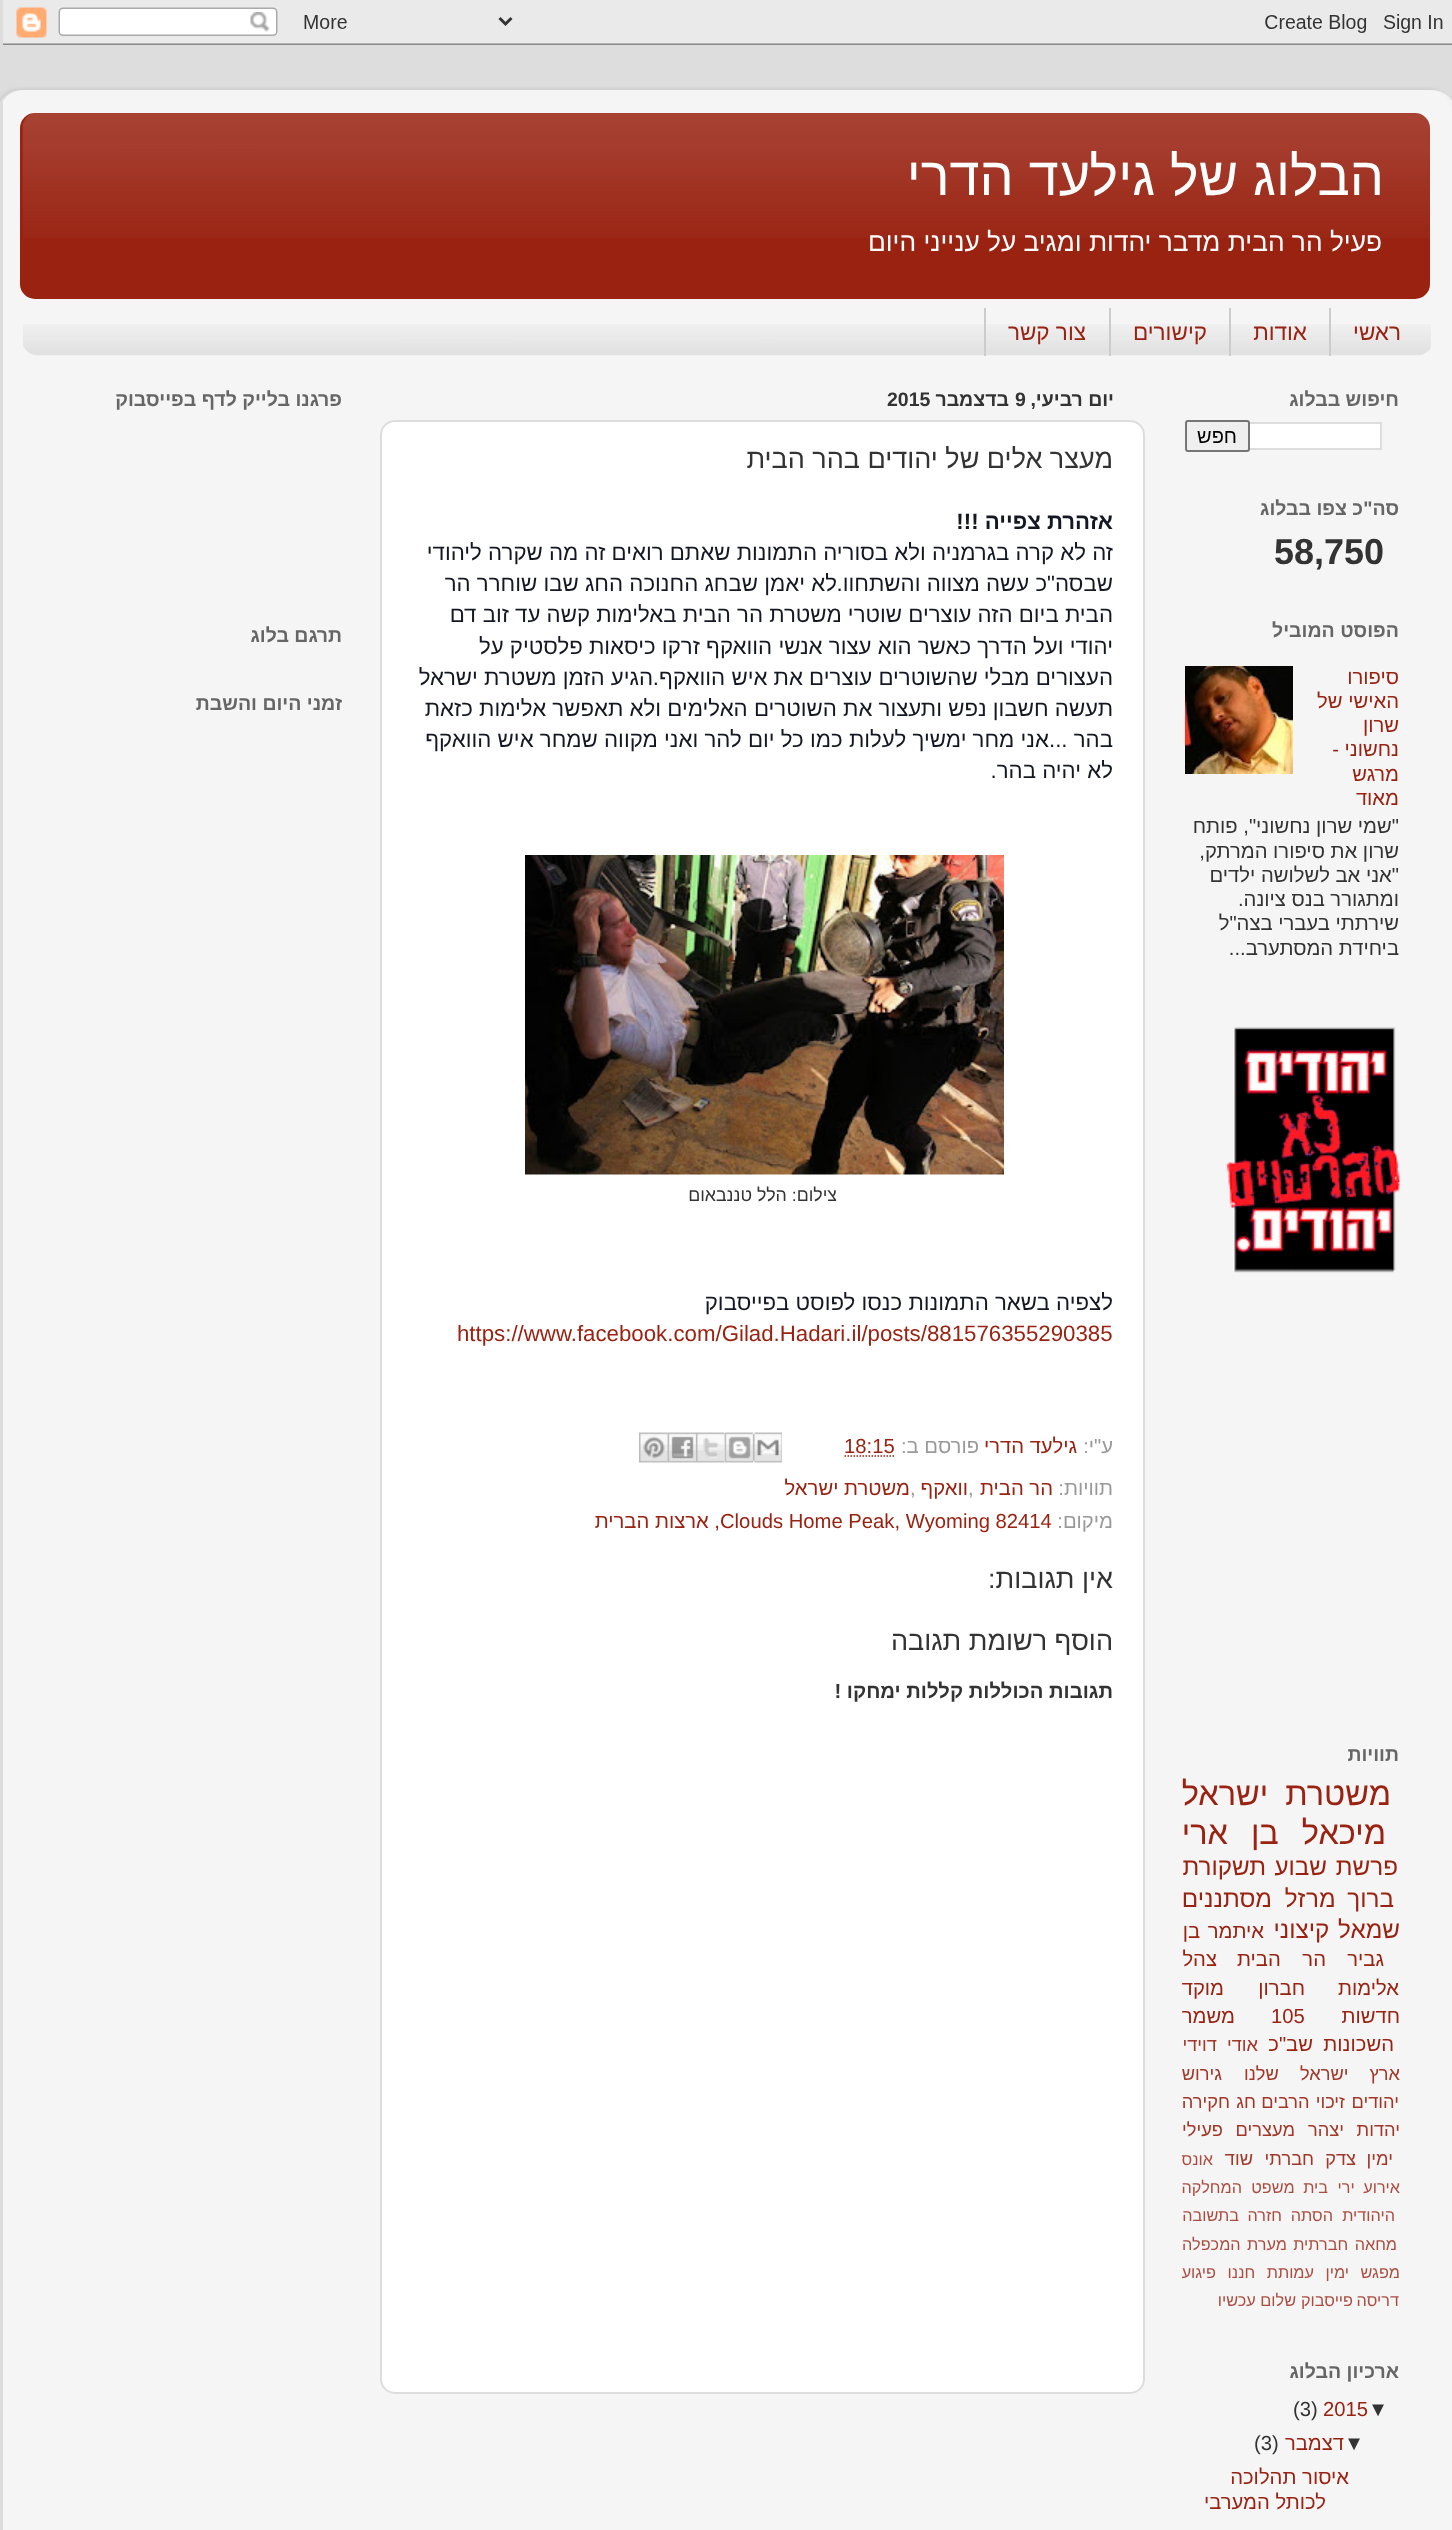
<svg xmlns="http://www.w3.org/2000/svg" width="1452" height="2530">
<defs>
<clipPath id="clip1"><path d="M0 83h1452v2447h-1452zm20 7h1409c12.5 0 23 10.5 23 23v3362c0 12.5-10.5 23-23 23h-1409c-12.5 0-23-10.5-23-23v-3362c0-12.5 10.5-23 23-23z" clip-rule="evenodd"/></clipPath>
</defs>
<rect width="100%" height="100%" fill="#ddd"/>
<image x="3" y="0" width="1449" height="45" href="media/1.png"/>
<g clip-path="url(#clip1)">
<rect x="-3" y="90" width="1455" height="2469" rx="23" fill="#00000026" filter="blur(2px)"/>
</g>
<image x="3" y="90" width="1449" height="2440" href="media/2.png"/>
<rect x="20" y="113" width="1410" height="186" rx="15" fill="#921"/>
<image x="22" y="113" width="1408" height="125" href="media/3.png"/>
<text x="1384" y="195" style="font-family:Liberation Sans;font-size:54px;direction:rtl;fill:#fff">הבלוג של גילעד הדרי</text>
<text x="1382" y="251" style="font-family:Liberation Sans;font-size:26.3px;direction:rtl;fill:#fff">פעיל הר הבית מדבר יהדות ומגיב על ענייני היום</text>
<image x="23" y="324" width="1408" height="32" href="media/4.png"/>
<rect x="1329" y="308" width="2" height="48" fill="#ccc"/>
<text x="1401" y="340" style="font-family:Liberation Sans;font-size:22.5px;direction:rtl;fill:#921">ראשי</text>
<rect x="1229" y="308" width="2" height="48" fill="#ccc"/>
<text x="1307" y="340" style="font-family:Liberation Sans;font-size:22.5px;direction:rtl;fill:#921">אודות</text>
<rect x="1109" y="308" width="2" height="48" fill="#ccc"/>
<text x="1207" y="340" style="font-family:Liberation Sans;font-size:22.5px;direction:rtl;fill:#921">קישורים</text>
<rect x="984" y="308" width="2" height="48" fill="#ccc"/>
<text x="1086" y="340" style="font-family:Liberation Sans;font-size:22.5px;direction:rtl;fill:#921">צור קשר</text>
<text x="1399" y="406" style="font-family:Liberation Sans;font-size:19.5px;font-weight:bold;direction:rtl;fill:#666">חיפוש בבלוג</text>
<rect x="1250" y="424" width="130" height="24" fill="#fff"/>
<rect x="1231" y="423" width="150" height="26" fill="none" stroke="#ddd" stroke-width="2"/>
<rect x="1186" y="421" width="63" height="30" rx="2" fill="#efefef" stroke="#767676" stroke-width="2"/>
<text x="1237" y="443" style="font-family:Liberation Sans;font-size:20px;direction:rtl;fill:#000">חפש</text>
<text x="1399" y="515" style="font-family:Liberation Sans;font-size:19.5px;font-weight:bold;direction:rtl;fill:#666">סה"כ צפו בבלוג</text>
<text x="1274" y="564" style="font-family:Liberation Sans;font-size:36px;font-weight:bold;fill:#333">58,750</text>
<text x="1399" y="637" style="font-family:Liberation Sans;font-size:19.5px;font-weight:bold;direction:rtl;fill:#666">הפוסט המוביל</text>
<text x="1399" y="684" style="font-family:Liberation Sans;font-size:20.25px;direction:rtl;fill:#921">סיפורו</text>
<text x="1399" y="708" style="font-family:Liberation Sans;font-size:20.25px;direction:rtl;fill:#921">האישי של</text>
<text x="1399" y="732" style="font-family:Liberation Sans;font-size:20.25px;direction:rtl;fill:#921">שרון</text>
<text x="1399" y="756" style="font-family:Liberation Sans;font-size:20.25px;direction:rtl;fill:#921">נחשוני -</text>
<text x="1399" y="781" style="font-family:Liberation Sans;font-size:20.25px;direction:rtl;fill:#921">מרגש</text>
<text x="1399" y="805" style="font-family:Liberation Sans;font-size:20.25px;direction:rtl;fill:#921">מאוד</text>
<image x="1185" y="666" width="108" height="108" href="media/5.png"/>
<text x="1399" y="833" style="font-family:Liberation Sans;font-size:20.25px;direction:rtl;fill:#333">"שמי שרון נחשוני", פותח</text>
<text x="1399" y="858" style="font-family:Liberation Sans;font-size:20.25px;direction:rtl;fill:#333">שרון את סיפורו המרתק,</text>
<text x="1399" y="882" style="font-family:Liberation Sans;font-size:20.25px;direction:rtl;fill:#333">"אני אב לשלושה ילדים</text>
<text x="1399" y="906" style="font-family:Liberation Sans;font-size:20.25px;direction:rtl;fill:#333">ומתגורר בנס ציונה.</text>
<text x="1399" y="930" style="font-family:Liberation Sans;font-size:20.25px;direction:rtl;fill:#333">שירתתי בעברי בצה"ל</text>
<text x="1399" y="955" style="font-family:Liberation Sans;font-size:20.25px;direction:rtl;fill:#333">ביחידת המסתערב...</text>
<image x="1226" y="1027" width="174" height="246" href="media/6.png"/>
<text x="1399" y="1761" style="font-family:Liberation Sans;font-size:19.5px;font-weight:bold;direction:rtl;fill:#666">תוויות</text>
<text x="1391" y="1805" word-spacing="8" style="font-family:Liberation Sans;font-size:32.5px;direction:rtl;fill:#921">משטרת ישראל</text>
<text x="1386" y="1844" word-spacing="14" style="font-family:Liberation Sans;font-size:32.5px;direction:rtl;fill:#921">מיכאל בן ארי</text>
<text x="1398" y="1875" word-spacing="2" style="font-family:Liberation Sans;font-size:24.25px;direction:rtl;fill:#921">פרשת שבוע</text>
<text x="1266" y="1875" style="font-family:Liberation Sans;font-size:24.25px;direction:rtl;fill:#921">תשקורת</text>
<text x="1394" y="1907" word-spacing="5" style="font-family:Liberation Sans;font-size:24.25px;direction:rtl;fill:#921">ברוך מרזל</text>
<text x="1272" y="1907" style="font-family:Liberation Sans;font-size:24.25px;direction:rtl;fill:#921">מסתננים</text>
<text x="1400" y="1938" word-spacing="2" style="font-family:Liberation Sans;font-size:24.25px;direction:rtl;fill:#921">שמאל קיצוני</text>
<text x="1264" y="1938" word-spacing="2" style="font-family:Liberation Sans;font-size:20.25px;direction:rtl;fill:#921">איתמר בן</text>
<text x="1384" y="1966" style="font-family:Liberation Sans;font-size:20.25px;direction:rtl;fill:#921">גביר</text>
<text x="1326" y="1966" word-spacing="16" style="font-family:Liberation Sans;font-size:20.25px;direction:rtl;fill:#921">הר הבית</text>
<text x="1217" y="1966" style="font-family:Liberation Sans;font-size:20.25px;direction:rtl;fill:#921">צהל</text>
<text x="1399" y="1995" style="font-family:Liberation Sans;font-size:20.25px;direction:rtl;fill:#921">אלימות</text>
<text x="1305" y="1995" style="font-family:Liberation Sans;font-size:20.25px;direction:rtl;fill:#921">חברון</text>
<text x="1224" y="1995" style="font-family:Liberation Sans;font-size:20.25px;direction:rtl;fill:#921">מוקד</text>
<text x="1400" y="2023" style="font-family:Liberation Sans;font-size:20.25px;direction:rtl;fill:#921">חדשות</text>
<text x="1271" y="2023" style="font-family:Liberation Sans;font-size:20.25px;fill:#921">105</text>
<text x="1235" y="2023" style="font-family:Liberation Sans;font-size:20.25px;direction:rtl;fill:#921">משמר</text>
<text x="1394" y="2051" style="font-family:Liberation Sans;font-size:20.25px;direction:rtl;fill:#921">השכונות</text>
<text x="1313" y="2051" style="font-family:Liberation Sans;font-size:20.25px;direction:rtl;fill:#921">שב"כ</text>
<text x="1258" y="2051" word-spacing="5" style="font-family:Liberation Sans;font-size:18.25px;direction:rtl;fill:#a23728">אודי דוידי</text>
<text x="1400" y="2080" word-spacing="16" style="font-family:Liberation Sans;font-size:18.25px;direction:rtl;fill:#a23728">ארץ ישראל שלנו</text>
<text x="1222" y="2080" style="font-family:Liberation Sans;font-size:18.25px;direction:rtl;fill:#a23728">גירוש</text>
<text x="1399" y="2108" style="font-family:Liberation Sans;font-size:18.25px;direction:rtl;fill:#a23728">יהודים</text>
<text x="1345" y="2108" word-spacing="1" style="font-family:Liberation Sans;font-size:18.25px;direction:rtl;fill:#a23728">זיכוי הרבים</text>
<text x="1256" y="2108" style="font-family:Liberation Sans;font-size:18.25px;direction:rtl;fill:#a23728">חג</text>
<text x="1230" y="2108" style="font-family:Liberation Sans;font-size:18.25px;direction:rtl;fill:#a23728">חקירה</text>
<text x="1400" y="2136" style="font-family:Liberation Sans;font-size:18.25px;direction:rtl;fill:#a23728">יהדות</text>
<text x="1344" y="2136" style="font-family:Liberation Sans;font-size:18.25px;direction:rtl;fill:#a23728">יצהר</text>
<text x="1295" y="2136" style="font-family:Liberation Sans;font-size:18.25px;direction:rtl;fill:#a23728">מעצרים</text>
<text x="1223" y="2136" style="font-family:Liberation Sans;font-size:18.25px;direction:rtl;fill:#a23728">פעילי</text>
<text x="1393" y="2165" style="font-family:Liberation Sans;font-size:18.25px;direction:rtl;fill:#a23728">ימין</text>
<text x="1356" y="2165" word-spacing="6" style="font-family:Liberation Sans;font-size:18.25px;direction:rtl;fill:#a23728">צדק חברתי</text>
<text x="1253" y="2165" style="font-family:Liberation Sans;font-size:18.25px;direction:rtl;fill:#a23728">שוד</text>
<text x="1213" y="2165" style="font-family:Liberation Sans;font-size:16.25px;direction:rtl;fill:#ab4c3f">אונס</text>
<text x="1400" y="2193" word-spacing="4" style="font-family:Liberation Sans;font-size:16.25px;direction:rtl;fill:#ab4c3f">אירוע ירי</text>
<text x="1328" y="2193" word-spacing="4" style="font-family:Liberation Sans;font-size:16.25px;direction:rtl;fill:#ab4c3f">בית משפט</text>
<text x="1242" y="2193" style="font-family:Liberation Sans;font-size:16.25px;direction:rtl;fill:#ab4c3f">המחלקה</text>
<text x="1395" y="2221" style="font-family:Liberation Sans;font-size:16.25px;direction:rtl;fill:#ab4c3f">היהודית</text>
<text x="1333" y="2221" style="font-family:Liberation Sans;font-size:16.25px;direction:rtl;fill:#ab4c3f">הסתה</text>
<text x="1282" y="2221" word-spacing="4" style="font-family:Liberation Sans;font-size:16.25px;direction:rtl;fill:#ab4c3f">חזרה בתשובה</text>
<text x="1397" y="2250" word-spacing="2" style="font-family:Liberation Sans;font-size:16.25px;direction:rtl;fill:#ab4c3f">מחאה חברתית</text>
<text x="1287" y="2250" word-spacing="2" style="font-family:Liberation Sans;font-size:16.25px;direction:rtl;fill:#ab4c3f">מערת המכפלה</text>
<text x="1400" y="2278" word-spacing="7" style="font-family:Liberation Sans;font-size:16.25px;direction:rtl;fill:#ab4c3f">מפגש ימין</text>
<text x="1314" y="2278" word-spacing="7" style="font-family:Liberation Sans;font-size:16.25px;direction:rtl;fill:#ab4c3f">עמותת חננו</text>
<text x="1216" y="2278" style="font-family:Liberation Sans;font-size:16.25px;direction:rtl;fill:#ab4c3f">פיגוע</text>
<text x="1399" y="2306" style="font-family:Liberation Sans;font-size:16.25px;direction:rtl;fill:#ab4c3f">דריסה</text>
<text x="1353" y="2306" style="font-family:Liberation Sans;font-size:16.25px;direction:rtl;fill:#ab4c3f">פייסבוק</text>
<text x="1296" y="2306" style="font-family:Liberation Sans;font-size:16.25px;direction:rtl;fill:#ab4c3f">שלום עכשיו</text>
<text x="1399" y="2378" style="font-family:Liberation Sans;font-size:19.5px;font-weight:bold;direction:rtl;fill:#666">ארכיון הבלוג</text>
<text x="1368" y="2416" style="font-family:Liberation Sans;font-size:20.25px;fill:#333">▼</text>
<text x="1323" y="2416" style="font-family:Liberation Sans;font-size:20.25px;fill:#921">2015</text>
<text x="1293" y="2416" style="font-family:Liberation Sans;font-size:20.25px;fill:#333">(3)</text>
<text x="1344" y="2450" style="font-family:Liberation Sans;font-size:20.25px;fill:#333">▼</text>
<text x="1344" y="2450" style="font-family:Liberation Sans;font-size:20.25px;direction:rtl;fill:#921">דצמבר</text>
<text x="1254" y="2450" style="font-family:Liberation Sans;font-size:20.25px;fill:#333">(3)</text>
<text x="1349" y="2484" style="font-family:Liberation Sans;font-size:20.25px;direction:rtl;fill:#921">איסור תהלוכה</text>
<text x="1326" y="2509" style="font-family:Liberation Sans;font-size:20.25px;direction:rtl;fill:#921">לכותל המערבי</text>
<text x="1114" y="406" style="font-family:Liberation Sans;font-size:19.5px;font-weight:bold;direction:rtl;fill:#333">יום רביעי,</text>
<text x="1015" y="406" style="font-family:Liberation Sans;font-size:19.5px;font-weight:bold;fill:#333">9</text>
<text x="1009" y="406" style="font-family:Liberation Sans;font-size:19.5px;font-weight:bold;direction:rtl;fill:#333">בדצמבר</text>
<text x="887" y="406" style="font-family:Liberation Sans;font-size:19.5px;font-weight:bold;fill:#333">2015</text>
<rect x="381" y="421" width="763" height="1972" rx="14" fill="#fff" stroke="#ddd" stroke-width="2"/>
<text x="1113" y="468" style="font-family:Liberation Sans;font-size:27px;direction:rtl;fill:#333">מעצר אלים של יהודים בהר הבית</text>
<text x="1113" y="529" style="font-family:Liberation Sans;font-size:22.25px;font-weight:bold;direction:rtl;fill:#141823">אזהרת צפייה !!!</text>
<text x="1113" y="560" style="font-family:Liberation Sans;font-size:22.25px;direction:rtl;fill:#141823">זה לא קרה בגרמניה ולא בסוריה התמונות שאתם רואים זה מה שקרה ליהודי</text>
<text x="1113" y="591" style="font-family:Liberation Sans;font-size:22.25px;direction:rtl;fill:#141823">שבסה"כ עשה מצווה והשתחוו.</text>
<text x="837" y="591" style="font-family:Liberation Sans;font-size:22.25px;direction:rtl;fill:#141823">לא יאמן שבחג החנוכה החג שבו שוחרר הר</text>
<text x="1113" y="622" style="font-family:Liberation Sans;font-size:22.25px;direction:rtl;fill:#141823">הבית ביום הזה עוצרים שוטרי משטרת הר הבית באלימות קשה עד זוב דם</text>
<text x="1113" y="654" style="font-family:Liberation Sans;font-size:22.25px;direction:rtl;fill:#141823">יהודי ועל הדרך כאשר הוא עצור אנשי הוואקף זרקו כיסאות פלסטיק על</text>
<text x="1113" y="685" style="font-family:Liberation Sans;font-size:22.25px;direction:rtl;fill:#141823">העצורים מבלי שהשוטרים עוצרים את איש הוואקף.</text>
<text x="653" y="685" style="font-family:Liberation Sans;font-size:22.25px;direction:rtl;fill:#141823">הגיע הזמן משטרת ישראל</text>
<text x="1113" y="716" style="font-family:Liberation Sans;font-size:22.25px;direction:rtl;fill:#141823">תעשה חשבון נפש ותעצור את השוטרים האלימים ולא תאפשר אלימות כזאת</text>
<text x="1113" y="747" style="font-family:Liberation Sans;font-size:22.25px;direction:rtl;fill:#141823">בהר ...</text>
<text x="1049" y="747" style="font-family:Liberation Sans;font-size:22.25px;direction:rtl;fill:#141823">אני מחר ימשיך לעלות כמו כל יום להר ואני מקווה שמחר איש הוואקף</text>
<text x="1113" y="778" style="font-family:Liberation Sans;font-size:22.25px;direction:rtl;fill:#141823">לא יהיה בהר.</text>
<image x="525" y="855" width="479" height="320" href="media/7.png"/>
<text x="837" y="1201" style="font-family:Liberation Sans;font-size:17.75px;direction:rtl;fill:#333">צילום: הלל טננבאום</text>
<text x="1113" y="1310" style="font-family:Liberation Sans;font-size:22.25px;direction:rtl;fill:#141823">לצפיה בשאר התמונות כנסו לפוסט בפייסבוק</text>
<text x="457" y="1341" style="font-family:Liberation Sans;font-size:22.25px;fill:#921">https://www.facebook.com/Gilad.Hadari.il/posts/881576355290385</text>
<text x="1113" y="1453" style="font-family:Liberation Sans;font-size:20.25px;direction:rtl;fill:#999">ע"י:</text>
<text x="1077" y="1453" style="font-family:Liberation Sans;font-size:20.25px;direction:rtl;fill:#921">גילעד הדרי</text>
<text x="979" y="1453" style="font-family:Liberation Sans;font-size:20.25px;direction:rtl;fill:#999">פורסם ב:</text>
<text x="844" y="1453" style="font-family:Liberation Sans;font-size:20.25px;fill:#921">18:15</text>
<path d="M844.5 1456h50.5" fill="none" stroke="#921" stroke-width="1.5" stroke-dasharray="1.5 1.5"/>
<image x="753" y="1432" width="29" height="31" href="media/8.png"/>
<image x="724" y="1432" width="29" height="31" href="media/9.png"/>
<image x="696" y="1432" width="28" height="31" href="media/10.png"/>
<image x="667" y="1432" width="29" height="31" href="media/11.png"/>
<image x="639" y="1432" width="29" height="31" href="media/12.png"/>
<text x="1113" y="1495" style="font-family:Liberation Sans;font-size:20.25px;direction:rtl;fill:#999">תוויות:</text>
<text x="1053" y="1495" style="font-family:Liberation Sans;font-size:20.25px;direction:rtl;fill:#921">הר הבית</text>
<text x="968" y="1495" style="font-family:Liberation Sans;font-size:20.25px;fill:#999">,</text>
<text x="968" y="1495" style="font-family:Liberation Sans;font-size:20.25px;direction:rtl;fill:#921">וואקף</text>
<text x="910" y="1495" style="font-family:Liberation Sans;font-size:20.25px;fill:#999">,</text>
<text x="910" y="1495" style="font-family:Liberation Sans;font-size:20.25px;direction:rtl;fill:#921">משטרת ישראל</text>
<text x="1113" y="1528" style="font-family:Liberation Sans;font-size:20.25px;direction:rtl;fill:#999">מיקום:</text>
<text x="720" y="1528" style="font-family:Liberation Sans;font-size:20.25px;fill:#921">Clouds Home Peak, Wyoming 82414</text>
<text x="720" y="1528" style="font-family:Liberation Sans;font-size:20.25px;direction:rtl;fill:#921">, ארצות הברית</text>
<text x="1113" y="1588" style="font-family:Liberation Sans;font-size:27px;direction:rtl;fill:#333">אין תגובות:</text>
<text x="1113" y="1650" style="font-family:Liberation Sans;font-size:27px;direction:rtl;fill:#333">הוסף רשומת תגובה</text>
<text x="1113" y="1698" style="font-family:Liberation Sans;font-size:20.25px;font-weight:bold;direction:rtl;fill:#333">תגובות הכוללות קללות ימחקו !</text>
<text x="342" y="406" style="font-family:Liberation Sans;font-size:19.5px;font-weight:bold;direction:rtl;fill:#666">פרגנו בלייק לדף בפייסבוק</text>
<text x="342" y="642" style="font-family:Liberation Sans;font-size:19.5px;font-weight:bold;direction:rtl;fill:#666">תרגם בלוג</text>
<text x="342" y="710" style="font-family:Liberation Sans;font-size:19.5px;font-weight:bold;direction:rtl;fill:#666">זמני היום והשבת</text>
</svg>
